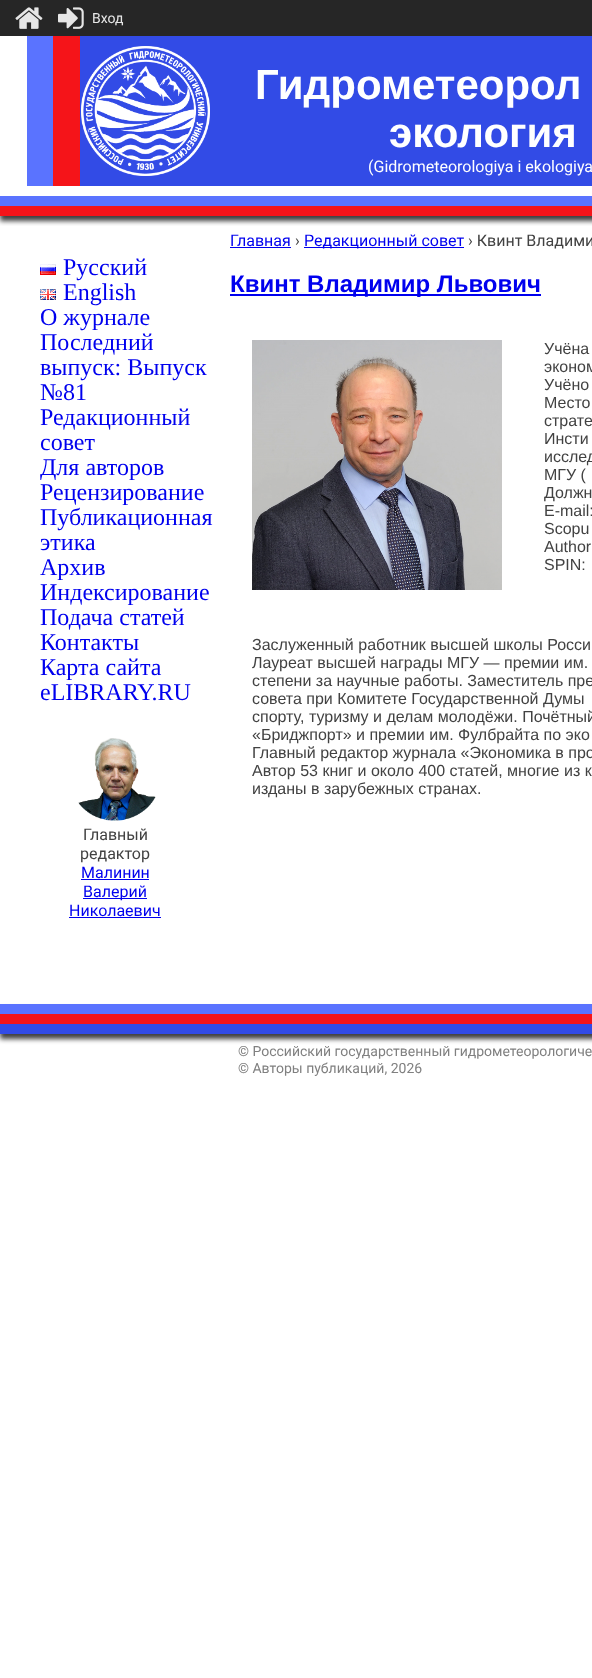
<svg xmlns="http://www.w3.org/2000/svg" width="592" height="1678">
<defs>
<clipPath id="clip1"><rect x="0" y="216" width="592" height="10"/></clipPath>
</defs>
<rect width="100%" height="100%" fill="#fff"/>
<rect width="592" height="36" fill="#262626"/>
<image x="15" y="7" width="28" height="22" href="media/1.png"/>
<image x="58" y="7" width="26" height="22" href="media/2.png"/>
<text x="92" y="23" style="font-family:Roboto;font-size:14px;fill:#e6e6e6">Вход</text>
<rect y="1009" width="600" height="30" fill="#000000bf" filter="blur(2.5px)"/>
<rect y="1004" width="592" height="10" fill="#5a73ff"/>
<rect y="1014" width="592" height="10" fill="#f51419"/>
<rect y="1024" width="592" height="10" fill="#324be6"/>
<text x="238" y="1056" style="font-family:Roboto;font-size:14px;fill:#808080">© Российский государственный гидрометеорологиче</text>
<text x="238" y="1073" style="font-family:Roboto;font-size:14px;fill:#808080">© Авторы публикаций, 2026</text>
<rect x="80" y="36" width="512" height="150" fill="#324be6"/>
<g clip-path="url(#clip1)">
<rect y="191" width="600" height="30" fill="#000000bf" filter="blur(2.5px)"/>
</g>
<rect x="7" y="185" width="20" height="1" fill="#fff"/>
<rect x="27" y="36" width="26" height="150" fill="#5a73ff"/>
<rect x="53" y="36" width="27" height="150" fill="#f51419"/>
<image x="81" y="46" width="129" height="130" href="media/3.png"/>
<text x="255" y="99" style="font-family:Liberation Sans;font-size:42px;font-weight:bold;fill:#fff">Гидрометеорол</text>
<text x="389" y="147" style="font-family:Liberation Sans;font-size:42px;font-weight:bold;fill:#fff">экология</text>
<text x="368" y="172" style="font-family:Roboto;font-size:16px;fill:#fff">(Gidrometeorologiya i ekologiya</text>
<rect y="196" width="592" height="10" fill="#5a73ff"/>
<rect y="206" width="592" height="10" fill="#f51419"/>
<image x="40" y="264" width="16" height="11" href="media/4.png"/>
<text x="63" y="275" style="font-family:Liberation Serif;font-size:24px;fill:#00e">Русский</text>
<image x="40" y="289" width="16" height="11" href="media/5.png"/>
<text x="63" y="300" style="font-family:Liberation Serif;font-size:24px;fill:#00e">English</text>
<text x="40" y="325" style="font-family:Liberation Serif;font-size:24px;fill:#00e">О журнале</text>
<text x="40" y="350" style="font-family:Liberation Serif;font-size:24px;fill:#00e">Последний</text>
<text x="40" y="375" style="font-family:Liberation Serif;font-size:24px;fill:#00e">выпуск: Выпуск</text>
<text x="40" y="400" style="font-family:Liberation Serif;font-size:24px;fill:#00e">№81</text>
<text x="40" y="425" style="font-family:Liberation Serif;font-size:24px;fill:#00e">Редакционный</text>
<text x="40" y="450" style="font-family:Liberation Serif;font-size:24px;fill:#00e">совет</text>
<text x="40" y="475" style="font-family:Liberation Serif;font-size:24px;fill:#00e">Для авторов</text>
<text x="40" y="500" style="font-family:Liberation Serif;font-size:24px;fill:#00e">Рецензирование</text>
<text x="40" y="525" style="font-family:Liberation Serif;font-size:24px;fill:#00e">Публикационная</text>
<text x="40" y="550" style="font-family:Liberation Serif;font-size:24px;fill:#00e">этика</text>
<text x="40" y="575" style="font-family:Liberation Serif;font-size:24px;fill:#00e">Архив</text>
<text x="40" y="600" style="font-family:Liberation Serif;font-size:24px;fill:#00e">Индексирование</text>
<text x="40" y="625" style="font-family:Liberation Serif;font-size:24px;fill:#00e">Подача статей</text>
<text x="40" y="650" style="font-family:Liberation Serif;font-size:24px;fill:#00e">Контакты</text>
<text x="40" y="675" style="font-family:Liberation Serif;font-size:24px;fill:#00e">Карта сайта</text>
<text x="40" y="700" style="font-family:Liberation Serif;font-size:24px;fill:#00e">eLIBRARY.RU</text>
<image x="78" y="738" width="78" height="83" href="media/6.png"/>
<text x="83" y="840" style="font-family:Roboto;font-size:16px;fill:#424242">Главный</text>
<text x="80" y="859" style="font-family:Roboto;font-size:16px;fill:#424242">редактор</text>
<text x="81" y="878" style="font-family:Roboto;font-size:16px;fill:#00e">Малинин</text>
<rect x="81" y="879" width="68" height="1" fill="#00e"/>
<rect x="83" y="898" width="64" height="1" fill="#00e"/>
<text x="83" y="897" style="font-family:Roboto;font-size:16px;fill:#00e">Валерий</text>
<text x="69" y="916" style="font-family:Roboto;font-size:16px;fill:#00e">Николаевич</text>
<rect x="69" y="917" width="92" height="1" fill="#00e"/>
<text x="230" y="246" style="font-family:Roboto;font-size:16px;fill:#00e">Главная</text>
<rect x="230" y="247" width="61" height="1" fill="#00e"/>
<text x="295" y="246" style="font-family:Roboto;font-size:16px;fill:#424242">›</text>
<rect x="304" y="247" width="160" height="1" fill="#00e"/>
<text x="304" y="246" style="font-family:Roboto;font-size:16px;fill:#00e">Редакционный совет</text>
<text x="468" y="246" style="font-family:Roboto;font-size:16px;fill:#424242">› Квинт Владими</text>
<rect x="230" y="294" width="311" height="2" fill="#00e"/>
<text x="230" y="292" style="font-family:Liberation Sans;font-size:24px;font-weight:bold;fill:#00e">Квинт Владимир Львович</text>
<image x="252" y="340" width="250" height="250" href="media/7.png"/>
<text x="544" y="354" style="font-family:Liberation Sans;font-size:16px;fill:#424242">Учёна</text>
<text x="544" y="372" style="font-family:Liberation Sans;font-size:16px;fill:#424242">эконом</text>
<text x="544" y="390" style="font-family:Liberation Sans;font-size:16px;fill:#424242">Учёно</text>
<text x="544" y="408" style="font-family:Liberation Sans;font-size:16px;fill:#424242">Место</text>
<text x="544" y="426" style="font-family:Liberation Sans;font-size:16px;fill:#424242">страте</text>
<text x="544" y="444" style="font-family:Liberation Sans;font-size:16px;fill:#424242">Инсти</text>
<text x="544" y="462" style="font-family:Liberation Sans;font-size:16px;fill:#424242">исслед</text>
<text x="544" y="480" style="font-family:Liberation Sans;font-size:16px;fill:#424242">МГУ (</text>
<text x="544" y="498" style="font-family:Liberation Sans;font-size:16px;fill:#424242">Должн</text>
<text x="544" y="516" style="font-family:Liberation Sans;font-size:16px;fill:#424242">E-mail:</text>
<text x="544" y="534" style="font-family:Liberation Sans;font-size:16px;fill:#424242">Scopu</text>
<text x="544" y="552" style="font-family:Liberation Sans;font-size:16px;fill:#424242">Author</text>
<text x="544" y="570" style="font-family:Liberation Sans;font-size:16px;fill:#424242">SPIN:</text>
<text x="252" y="650" style="font-family:Liberation Sans;font-size:16px;fill:#424242">Заслуженный работник высшей школы Росси</text>
<text x="252" y="668" style="font-family:Liberation Sans;font-size:16px;fill:#424242">Лауреат высшей награды МГУ — премии им.</text>
<text x="252" y="686" style="font-family:Liberation Sans;font-size:16px;fill:#424242">степени за научные работы. Заместитель пре</text>
<text x="252" y="704" style="font-family:Liberation Sans;font-size:16px;fill:#424242">совета при Комитете Государственной Думы</text>
<text x="252" y="722" style="font-family:Liberation Sans;font-size:16px;fill:#424242">спорту, туризму и делам молодёжи. Почётный</text>
<text x="252" y="740" style="font-family:Liberation Sans;font-size:16px;fill:#424242">«Бриджпорт» и премии им. Фулбрайта по эко</text>
<text x="252" y="758" style="font-family:Liberation Sans;font-size:16px;fill:#424242">Главный редактор журнала «Экономика в про</text>
<text x="252" y="776" style="font-family:Liberation Sans;font-size:16px;fill:#424242">Автор 53 книг и около 400 статей, многие из к</text>
<text x="252" y="794" style="font-family:Liberation Sans;font-size:16px;fill:#424242">изданы в зарубежных странах.</text>
</svg>
